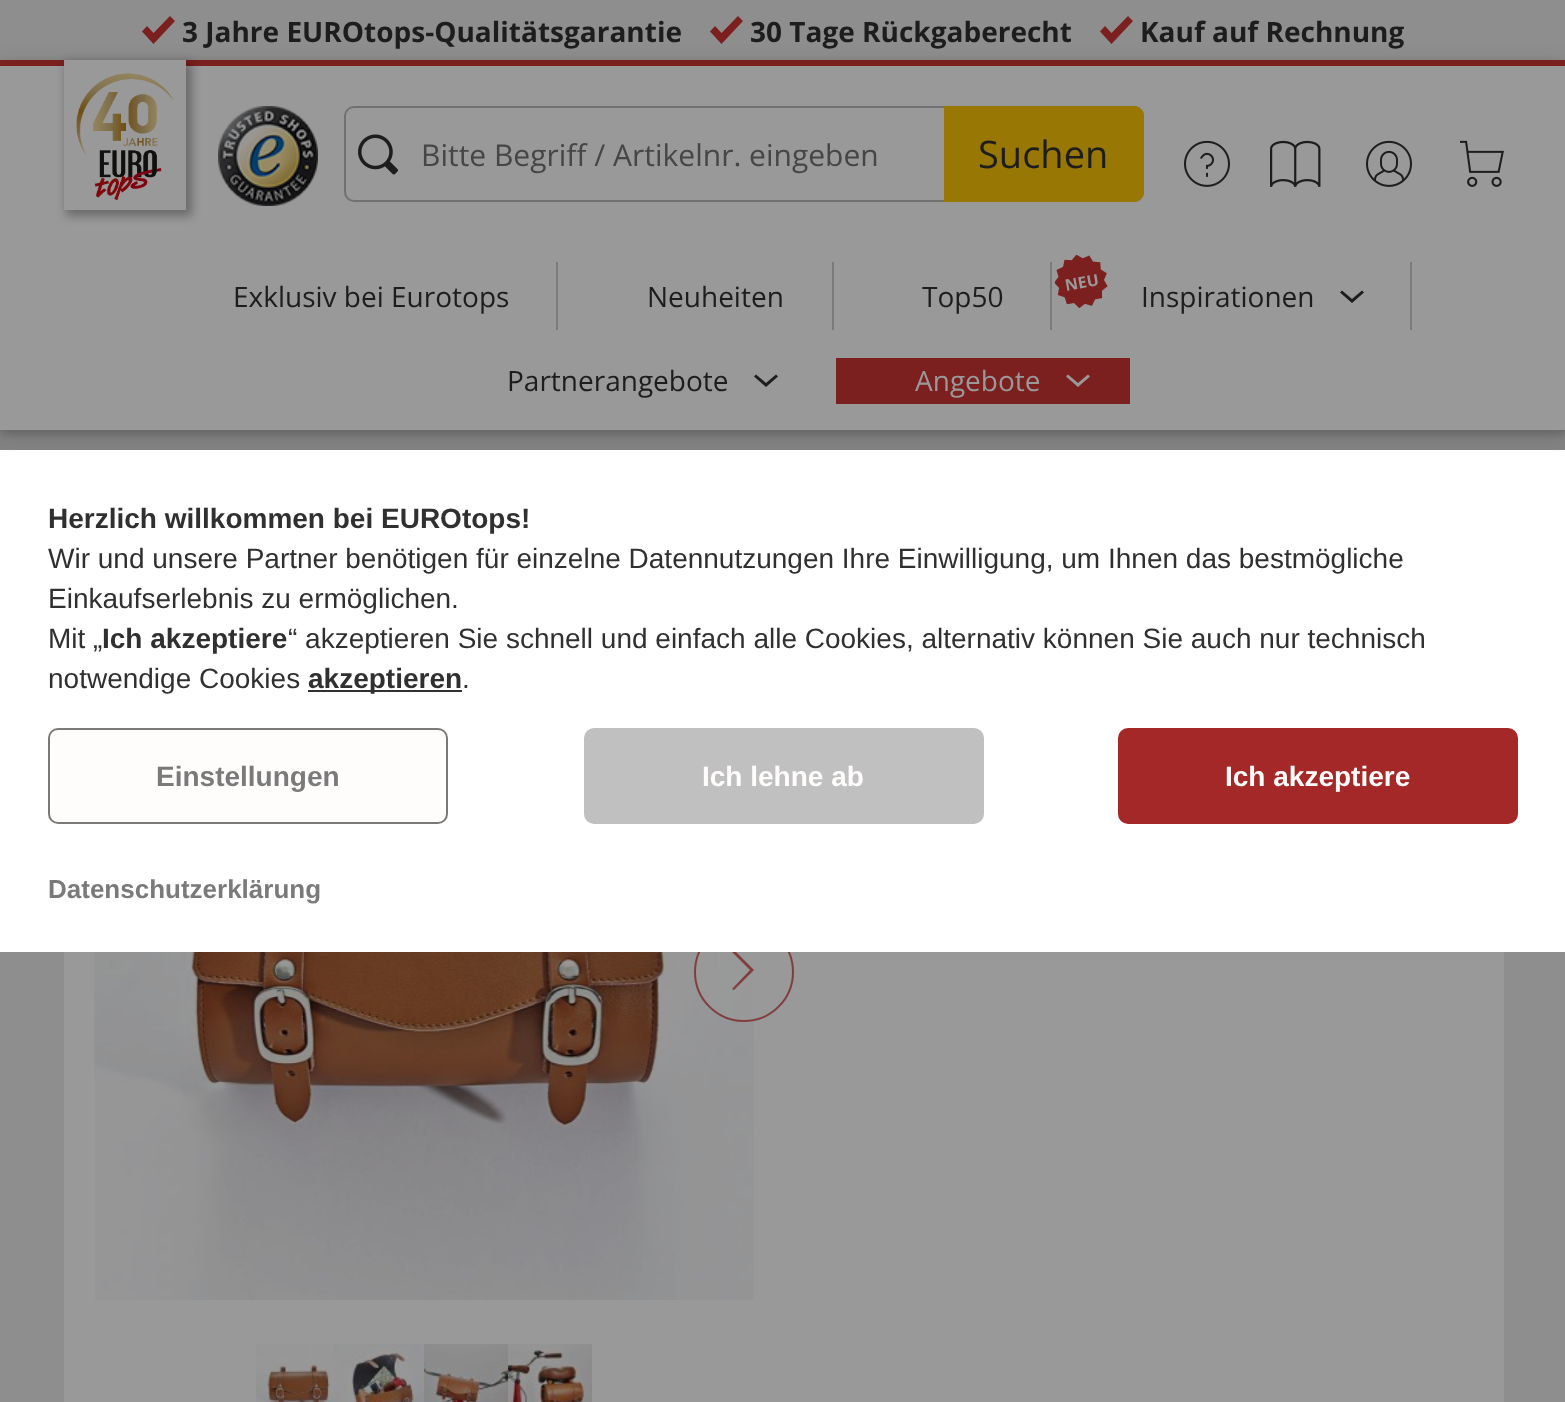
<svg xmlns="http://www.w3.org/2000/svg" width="1565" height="1402">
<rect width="100%" height="100%" fill="#8e8e8e"/>
<text x="182" y="42" style="font-family:Open Sans;font-size:28px;font-weight:bold;fill:#1d1d1d">3 Jahre EUROtops-Qualitätsgarantie</text>
<path d="M153.5 33l-6.5-7l-5 5.5l11.5 12.5l21.5-23l-5-5z" fill="#7b1f1f"/>
<text x="750" y="42" style="font-family:Open Sans;font-size:28px;font-weight:bold;fill:#1d1d1d">30 Tage Rückgaberecht</text>
<path d="M721.5 33l-6.5-7l-5 5.5l11.5 12.5l21.5-23l-5-5z" fill="#7b1f1f"/>
<text x="1140" y="42" style="font-family:Open Sans;font-size:28px;font-weight:bold;fill:#1d1d1d">Kauf auf Rechnung</text>
<path d="M1111.5 33l-6.5-7l-5 5.5l11.5 12.5l21.5-23l-5-5z" fill="#7b1f1f"/>
<rect y="430" width="1565" height="20" fill="#838383"/>
<rect y="64" width="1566" height="370" fill="#0000001f" filter="blur(10px)"/>
<rect y="64" width="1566" height="370" fill="#00000029" filter="blur(4px)"/>
<rect y="66" width="1565" height="364" fill="#999"/>
<rect y="60" width="1565" height="6" fill="#7b1f1f"/>
<rect x="66" y="62" width="126" height="154" fill="#0000004d" filter="blur(5px)"/>
<rect x="64" y="60" width="122" height="150" fill="#999"/>
<image x="76" y="73" width="98" height="128" href="media/1.png"/>
<image x="218" y="106" width="100" height="100" href="media/2.png"/>
<rect x="345" y="107" width="798" height="94" rx="9" fill="none" stroke="#717171" stroke-width="2"/>
<image x="358" y="134" width="40" height="41" href="media/3.png"/>
<text x="421" y="166" style="font-family:Open Sans;font-size:30px;fill:#464646">Bitte Begriff / Artikelnr. eingeben</text>
<path d="M944 106h190c5.5 0 10 4.5 10 10v76c0 5.5-4.5 10-10 10h-190z" fill="#997705"/>
<text x="978" y="168" style="font-family:Open Sans;font-size:38px;fill:#1d1d1d">Suchen</text>
<image x="1184" y="140" width="46" height="47" href="media/4.png"/>
<image x="1270" y="140" width="51" height="47" href="media/5.png"/>
<image x="1366" y="140" width="46" height="47" href="media/6.png"/>
<image x="1460" y="140" width="44" height="47" href="media/7.png"/>
<text x="233" y="307" style="font-family:Open Sans;font-size:28px;fill:#1d1d1d">Exklusiv bei Eurotops</text>
<rect x="556" y="262" width="2" height="68" fill="#7a7a7a"/>
<text x="647" y="307" style="font-family:Open Sans;font-size:28px;fill:#1d1d1d">Neuheiten</text>
<rect x="832" y="262" width="2" height="68" fill="#7a7a7a"/>
<text x="922" y="307" style="font-family:Open Sans;font-size:28px;fill:#1d1d1d">Top50</text>
<rect x="1050" y="262" width="2" height="68" fill="#7a7a7a"/>
<image x="1054" y="254" width="54" height="54" href="media/8.png"/>
<text x="1066" y="291" transform="rotate(-10 1066 291)" style="font-family:Open Sans;font-size:16px;font-weight:bold;fill:#999">NEU</text>
<rect x="1410" y="262" width="2" height="68" fill="#7a7a7a"/>
<text x="1141" y="307" style="font-family:Open Sans;font-size:28px;fill:#1d1d1d">Inspirationen</text>
<path d="M1352 303l-12-10.5l2-2l10 8.5l10-8.5l2 2z" fill="#1d1d1d"/>
<text x="507" y="391" style="font-family:Open Sans;font-size:28px;fill:#1d1d1d">Partnerangebote</text>
<path d="M766 387l-12-10.5l2-2l10 8.5l10-8.5l2 2z" fill="#1d1d1d"/>
<rect x="836" y="358" width="294" height="46" fill="#7b1f1f"/>
<text x="915" y="391" style="font-family:Open Sans;font-size:28px;fill:#999">Angebote</text>
<path d="M1078 387l-12-10.5l2-2l10 8.5l10-8.5l2 2z" fill="#999"/>
<rect x="64" y="952" width="1440" height="450" fill="#999"/>
<image x="94" y="952" width="660" height="348" href="media/9.png"/>
<circle cx="744" cy="972" r="50" fill="#999999bf"/>
<circle cx="744" cy="972" r="49" fill="none" stroke="#7b1f1fbf" stroke-width="2"/>
<path d="M734 990l-2-1l18-19l-18-18l2-2l20 20z" fill="#823d3d"/>
<image x="256" y="1344" width="84" height="58" href="media/10.png"/>
<image x="340" y="1344" width="84" height="58" href="media/11.png"/>
<image x="424" y="1344" width="84" height="58" href="media/12.png"/>
<image x="508" y="1344" width="84" height="58" href="media/13.png"/>
<rect y="450" width="1565" height="502" fill="#fff"/>
<text x="48" y="528" style="font-family:Liberation Sans;font-size:28px;font-weight:bold;fill:#303030">Herzlich willkommen bei EUROtops!</text>
<text x="48" y="568" style="font-family:Liberation Sans;font-size:28px;fill:#303030">Wir und unsere Partner benötigen für einzelne Datennutzungen Ihre Einwilligung, um Ihnen das bestmögliche</text>
<text x="48" y="608" style="font-family:Liberation Sans;font-size:28px;fill:#303030">Einkaufserlebnis zu ermöglichen.</text>
<text x="48" y="648" style="font-family:Liberation Sans;font-size:28px;fill:#303030">Mit „</text>
<text x="102" y="648" style="font-family:Liberation Sans;font-size:28px;font-weight:bold;fill:#303030">Ich akzeptiere</text>
<text x="288" y="648" style="font-family:Liberation Sans;font-size:28px;fill:#303030">“ akzeptieren Sie schnell und einfach alle Cookies, alternativ können Sie auch nur technisch</text>
<text x="48" y="688" style="font-family:Liberation Sans;font-size:28px;fill:#303030">notwendige Cookies</text>
<rect x="308" y="690" width="154" height="2" fill="#303030"/>
<text x="308" y="688" style="font-family:Liberation Sans;font-size:28px;font-weight:bold;fill:#303030">akzeptieren</text>
<text x="462" y="688" style="font-family:Liberation Sans;font-size:28px;fill:#303030">.</text>
<rect x="49" y="729" width="398" height="94" rx="9" fill="#fffcfc" stroke="#7a7a7a" stroke-width="2"/>
<text x="156" y="786" style="font-family:Liberation Sans;font-size:28px;font-weight:bold;fill:#7a7a7a">Einstellungen</text>
<rect x="584" y="728" width="400" height="96" rx="10" fill="#c0c0c0"/>
<text x="702" y="786" style="font-family:Liberation Sans;font-size:28px;font-weight:bold;fill:#fffcfc">Ich lehne ab</text>
<rect x="1118" y="728" width="400" height="96" rx="10" fill="#a52828"/>
<text x="1225" y="786" style="font-family:Liberation Sans;font-size:28px;font-weight:bold;fill:#fffcfc">Ich akzeptiere</text>
<text x="48" y="898" style="font-family:Liberation Sans;font-size:26px;font-weight:bold;fill:#7a7a7a">Datenschutzerklärung</text>
</svg>
